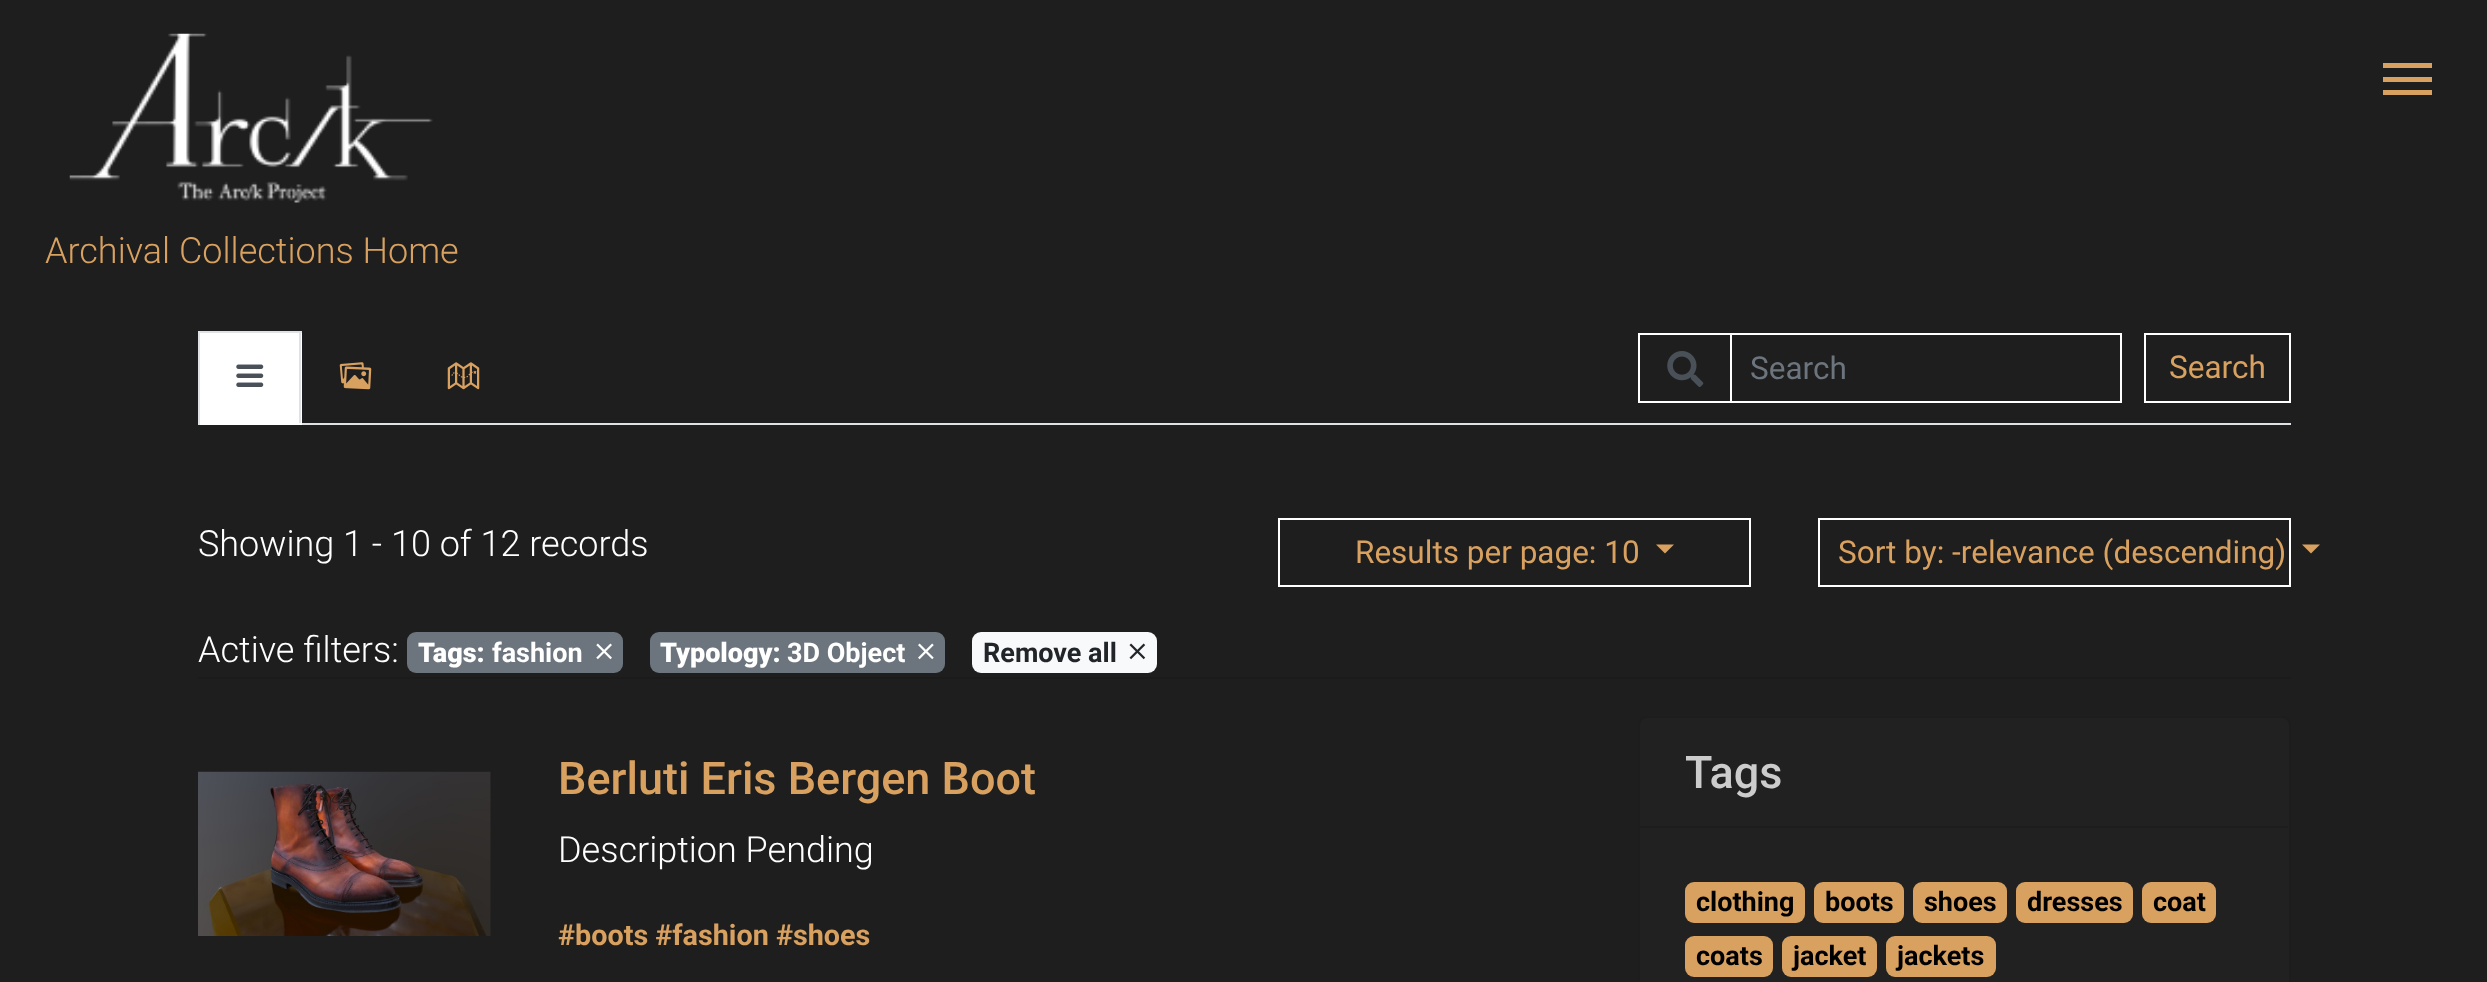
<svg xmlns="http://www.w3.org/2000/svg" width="2487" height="982">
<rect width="100%" height="100%" fill="#1e1e1e"/>
<image x="69" y="33" width="364" height="170" href="media/1.png"/>
<rect x="2383" y="63" width="49" height="5" fill="#d9a160"/>
<rect x="2383" y="77" width="49" height="5" fill="#d9a160"/>
<rect x="2383" y="90" width="49" height="5" fill="#d9a160"/>
<text x="45" y="263" style="font-family:Roboto;font-size:36px;font-weight:300;fill:#d9a160">Archival Collections Home</text>
<rect x="302" y="423" width="1989" height="2" fill="#dee2e6"/>
<rect x="200" y="333" width="102" height="90" fill="#fff"/>
<rect x="198" y="331" width="104" height="2" fill="#dee2e6"/>
<rect x="299" y="331" width="2" height="94" fill="#dee2e6"/>
<rect x="198" y="423" width="104" height="2" fill="#fff"/>
<rect x="198" y="331" width="2" height="94" fill="#dee2e6"/>
<image x="236" y="364" width="28" height="23" href="media/2.png"/>
<image x="339" y="362" width="33" height="28" href="media/3.png"/>
<image x="447" y="362" width="33" height="28" href="media/4.png"/>
<rect x="1638" y="333" width="92" height="2" fill="#fff"/>
<rect x="1638" y="401" width="92" height="2" fill="#fff"/>
<rect x="1638" y="333" width="2" height="70" fill="#fff"/>
<image x="1667" y="351" width="37" height="36" href="media/5.png"/>
<rect x="1731" y="334" width="390" height="68" fill="none" stroke="#fff" stroke-width="2"/>
<text x="1750" y="379" style="font-family:Roboto;font-size:31.5px;fill:#6c757d">Search</text>
<rect x="2145" y="334" width="145" height="68" fill="none" stroke="#fff" stroke-width="2"/>
<text x="2169" y="378" style="font-family:Roboto;font-size:31.5px;fill:#d9a160">Search</text>
<text x="198" y="556" style="font-family:Roboto;font-size:36px;font-weight:300;fill:#fff">Showing 1 - 10 of 12 records</text>
<rect x="1279" y="519" width="471" height="67" fill="none" stroke="#fff" stroke-width="2"/>
<text x="1355" y="563" style="font-family:Roboto;font-size:31.5px;fill:#d9a160">Results per page: 10</text>
<path d="M1656 544.5h18l-9 9z" fill="#d9a160"/>
<rect x="1819" y="519" width="471" height="67" fill="none" stroke="#fff" stroke-width="2"/>
<text x="1838" y="563" style="font-family:Roboto;font-size:31.5px;fill:#d9a160">Sort by: -relevance (descending)</text>
<path d="M2302 544.5h18l-9 9z" fill="#d9a160"/>
<text x="198" y="662" style="font-family:Roboto;font-size:36px;font-weight:300;fill:#fff">Active filters:</text>
<rect x="407" y="632" width="216" height="41" rx="9" fill="#6c757d"/>
<text x="418" y="662" style="font-family:Roboto;font-size:27px;font-weight:900;fill:#fff">Tags:</text>
<text x="492" y="662" style="font-family:Roboto;font-size:27px;font-weight:bold;fill:#fff">fashion</text>
<image x="596" y="643" width="16" height="17" href="media/6.png"/>
<rect x="650" y="632" width="295" height="41" rx="9" fill="#6c757d"/>
<text x="660" y="662" style="font-family:Roboto;font-size:27px;font-weight:900;fill:#fff">Typology:</text>
<text x="787" y="662" style="font-family:Roboto;font-size:27px;font-weight:bold;fill:#fff">3D Object</text>
<image x="918" y="643" width="16" height="17" href="media/7.png"/>
<rect x="972" y="632" width="185" height="41" rx="9" fill="#f8f9fa"/>
<text x="983" y="662" style="font-family:Roboto;font-size:27px;font-weight:bold;fill:#212529">Remove all</text>
<image x="1129" y="643" width="17" height="17" href="media/8.png"/>
<rect x="198" y="677" width="2093" height="2" fill="#1b1b1b"/>
<image x="198" y="771" width="293" height="165" href="media/9.png"/>
<text x="558" y="794" style="font-family:Roboto;font-size:45px;font-weight:500;fill:#d9a160">Berluti Eris Bergen Boot</text>
<text x="558" y="862" style="font-family:Roboto;font-size:36px;font-weight:300;fill:#fff">Description Pending</text>
<text x="558" y="945" style="font-family:Roboto;font-size:28.75px;font-weight:bold;fill:#d9a160">#boots #fashion #shoes</text>
<rect x="1639" y="717" width="651" height="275" rx="8" fill="#212121" stroke="#1d1d1d" stroke-width="2"/>
<rect x="1640" y="826" width="648" height="2" fill="#1d1d1d"/>
<text x="1685" y="788" style="font-family:Roboto;font-size:45px;font-weight:500;fill:#ccc">Tags</text>
<rect x="1685" y="882" width="120" height="41" rx="9" fill="#d9a160"/>
<text x="1696" y="911" style="font-family:Roboto;font-size:27px;font-weight:bold;fill:#000">clothing</text>
<rect x="1814" y="882" width="90" height="41" rx="9" fill="#d9a160"/>
<text x="1825" y="911" style="font-family:Roboto;font-size:27px;font-weight:bold;fill:#000">boots</text>
<rect x="1913" y="882" width="94" height="41" rx="9" fill="#d9a160"/>
<text x="1924" y="911" style="font-family:Roboto;font-size:27px;font-weight:bold;fill:#000">shoes</text>
<rect x="2016" y="882" width="117" height="41" rx="9" fill="#d9a160"/>
<text x="2027" y="911" style="font-family:Roboto;font-size:27px;font-weight:bold;fill:#000">dresses</text>
<rect x="2142" y="882" width="74" height="41" rx="9" fill="#d9a160"/>
<text x="2153" y="911" style="font-family:Roboto;font-size:27px;font-weight:bold;fill:#000">coat</text>
<rect x="1685" y="936" width="88" height="41" rx="9" fill="#d9a160"/>
<text x="1696" y="965" style="font-family:Roboto;font-size:27px;font-weight:bold;fill:#000">coats</text>
<rect x="1782" y="936" width="95" height="41" rx="9" fill="#d9a160"/>
<text x="1793" y="965" style="font-family:Roboto;font-size:27px;font-weight:bold;fill:#000">jacket</text>
<rect x="1886" y="936" width="110" height="41" rx="9" fill="#d9a160"/>
<text x="1897" y="965" style="font-family:Roboto;font-size:27px;font-weight:bold;fill:#000">jackets</text>
</svg>
